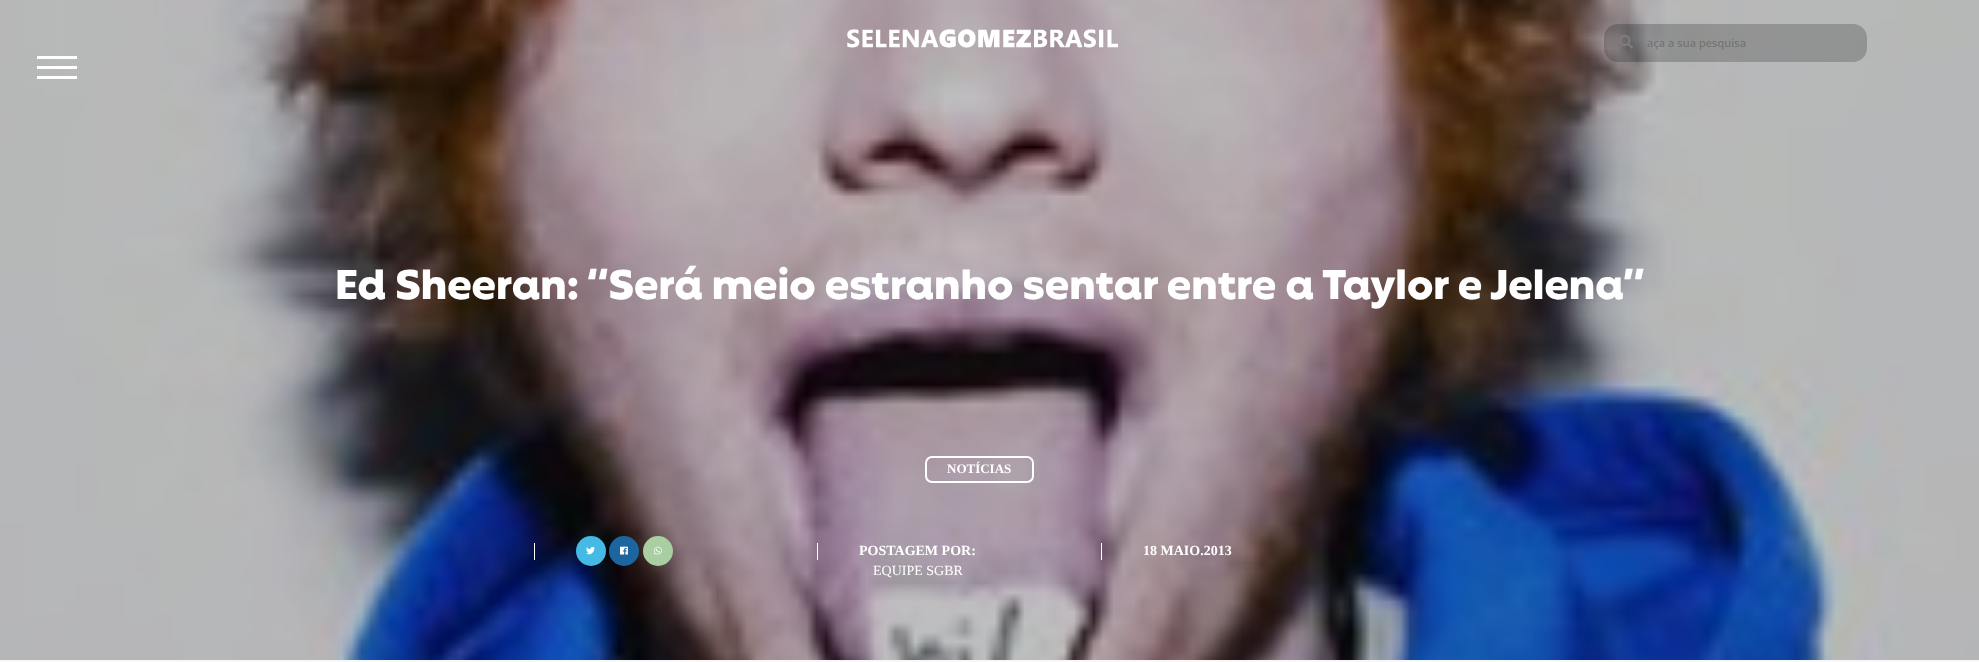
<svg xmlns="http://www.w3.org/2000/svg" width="1979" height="662">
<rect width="100%" height="100%" fill="#f8f8f8"/>
<image x="0" y="0" width="1979" height="660" href="media/3.png"/>
<image x="847" y="29" width="271" height="19" href="media/1.png"/>
<rect x="1604" y="24" width="263" height="38" rx="14" fill="#00000033"/>
<image x="1619" y="34" width="14" height="15" href="media/2.png"/>
<text x="1647" y="47" style="font-family:Open Sans;font-size:11px;font-weight:600;fill:#757575">aça a sua pesquisa</text>
<rect x="37" y="66" width="40" height="3" fill="#fff"/>
<rect x="37" y="56" width="40" height="3" fill="#fff"/>
<rect x="37" y="76" width="40" height="3" fill="#fff"/>
<text x="335" y="299" style="font-family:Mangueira;font-size:42px;font-weight:900;fill:#fff">Ed Sheeran: “Será meio estranho sentar entre a Taylor e Jelena”</text>
<rect x="926" y="457" width="107" height="25" rx="6" fill="none" stroke="#fff" stroke-width="2"/>
<text x="947" y="473" style="font-family:Liberation Serif;font-size:13px;font-weight:bold;fill:#fff">NOTÍCIAS</text>
<rect x="534" y="543" width="1" height="17" fill="#fff"/>
<circle cx="591" cy="551" r="15" fill="#45bae4"/>
<image x="586" y="547" width="9" height="8" href="media/4.png"/>
<circle cx="624" cy="551" r="15" fill="#1c659e"/>
<image x="620" y="546" width="8" height="9" href="media/5.png"/>
<circle cx="658" cy="551" r="15" fill="#a8cea2"/>
<image x="654" y="546" width="8" height="9" href="media/6.png"/>
<rect x="817" y="543" width="1" height="17" fill="#fff"/>
<text x="859" y="555" style="font-family:Liberation Serif;font-size:14px;font-weight:bold;fill:#fff">POSTAGEM POR:</text>
<text x="873" y="575" style="font-family:Liberation Serif;font-size:14px;fill:#fff">EQUIPE SGBR</text>
<rect x="1101" y="543" width="1" height="17" fill="#fff"/>
<text x="1143" y="555" style="font-family:Liberation Serif;font-size:14px;font-weight:bold;fill:#fff">18 MAIO.2013</text>
</svg>
